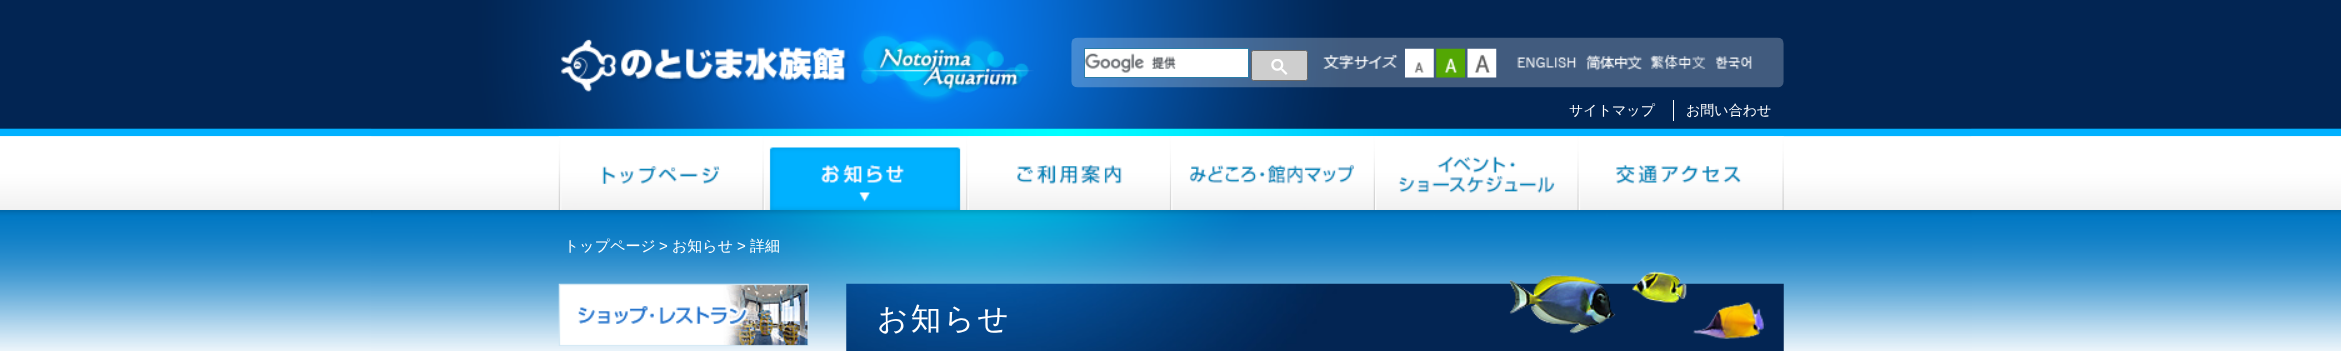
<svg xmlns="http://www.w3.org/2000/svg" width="2341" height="351">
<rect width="100%" height="100%" fill="#fff"/>
<image x="0" y="0" width="2341" height="137" href="media/1.png"/>
<image x="561" y="30" width="473" height="74" href="media/2.png"/>
<image x="1071" y="37" width="713" height="51" href="media/3.png"/>
<rect x="1085" y="49" width="163" height="28" fill="#fff"/>
<image x="1085" y="53" width="91" height="20" href="media/4.png"/>
<rect x="1084.5" y="48.5" width="164" height="29" fill="none" stroke="#2b7da8"/>
<rect x="1251.5" y="50.5" width="56" height="30" rx="2" fill="#cecece" stroke="#666"/>
<image x="1271" y="59" width="17" height="16" href="media/5.png"/>
<image x="1323" y="54" width="75" height="15" href="media/6.png"/>
<image x="1405" y="48" width="29" height="30" href="media/7.png"/>
<image x="1436" y="48" width="29" height="30" href="media/8.png"/>
<image x="1467" y="48" width="30" height="30" href="media/9.png"/>
<image x="1517" y="57" width="60" height="11" href="media/10.png"/>
<image x="1586" y="55" width="57" height="16" href="media/11.png"/>
<image x="1650" y="54" width="56" height="15" href="media/12.png"/>
<image x="1715" y="56" width="37" height="13" href="media/13.png"/>
<text x="1569" y="115" style="font-family:WenQuanYi Zen Hei;font-size:14px;font-weight:500;fill:#fff">サイトマップ</text>
<rect x="1673" y="100" width="1" height="21" fill="#fff"/>
<text x="1686" y="115" style="font-family:WenQuanYi Zen Hei;font-size:14px;font-weight:500;fill:#fff">お問い合わせ</text>
<image x="0" y="136" width="2341" height="74" href="media/14.png"/>
<image x="558" y="136" width="206" height="74" href="media/15.png"/>
<image x="763" y="136" width="205" height="74" href="media/16.png"/>
<image x="967" y="136" width="205" height="74" href="media/17.png"/>
<image x="1171" y="136" width="204" height="74" href="media/18.png"/>
<image x="1375" y="136" width="204" height="74" href="media/19.png"/>
<image x="1578" y="136" width="206" height="74" href="media/20.png"/>
<image x="0" y="210" width="2341" height="141" href="media/21.png"/>
<text x="564" y="251" style="font-family:WenQuanYi Zen Hei;font-size:15px;font-weight:500;fill:#fff">トップページ</text>
<text x="659" y="251" style="font-family:Liberation Sans;font-size:15px;fill:#fff">&gt;</text>
<text x="672" y="251" style="font-family:WenQuanYi Zen Hei;font-size:15px;font-weight:500;fill:#fff">お知らせ</text>
<text x="737" y="251" style="font-family:Liberation Sans;font-size:15px;fill:#fff">&gt;</text>
<text x="750" y="251" style="font-family:WenQuanYi Zen Hei;font-size:15px;font-weight:500;fill:#fff">詳細</text>
<image x="558" y="283" width="251" height="63" href="media/22.png"/>
<image x="846" y="283" width="938" height="68" href="media/23.png"/>
<text x="877" y="329" style="font-family:WenQuanYi Zen Hei;font-size:30.5px;font-weight:500;letter-spacing:2.5px;fill:#fff">お知らせ</text>
<image x="1509" y="271" width="257" height="68" href="media/24.png"/>
</svg>
